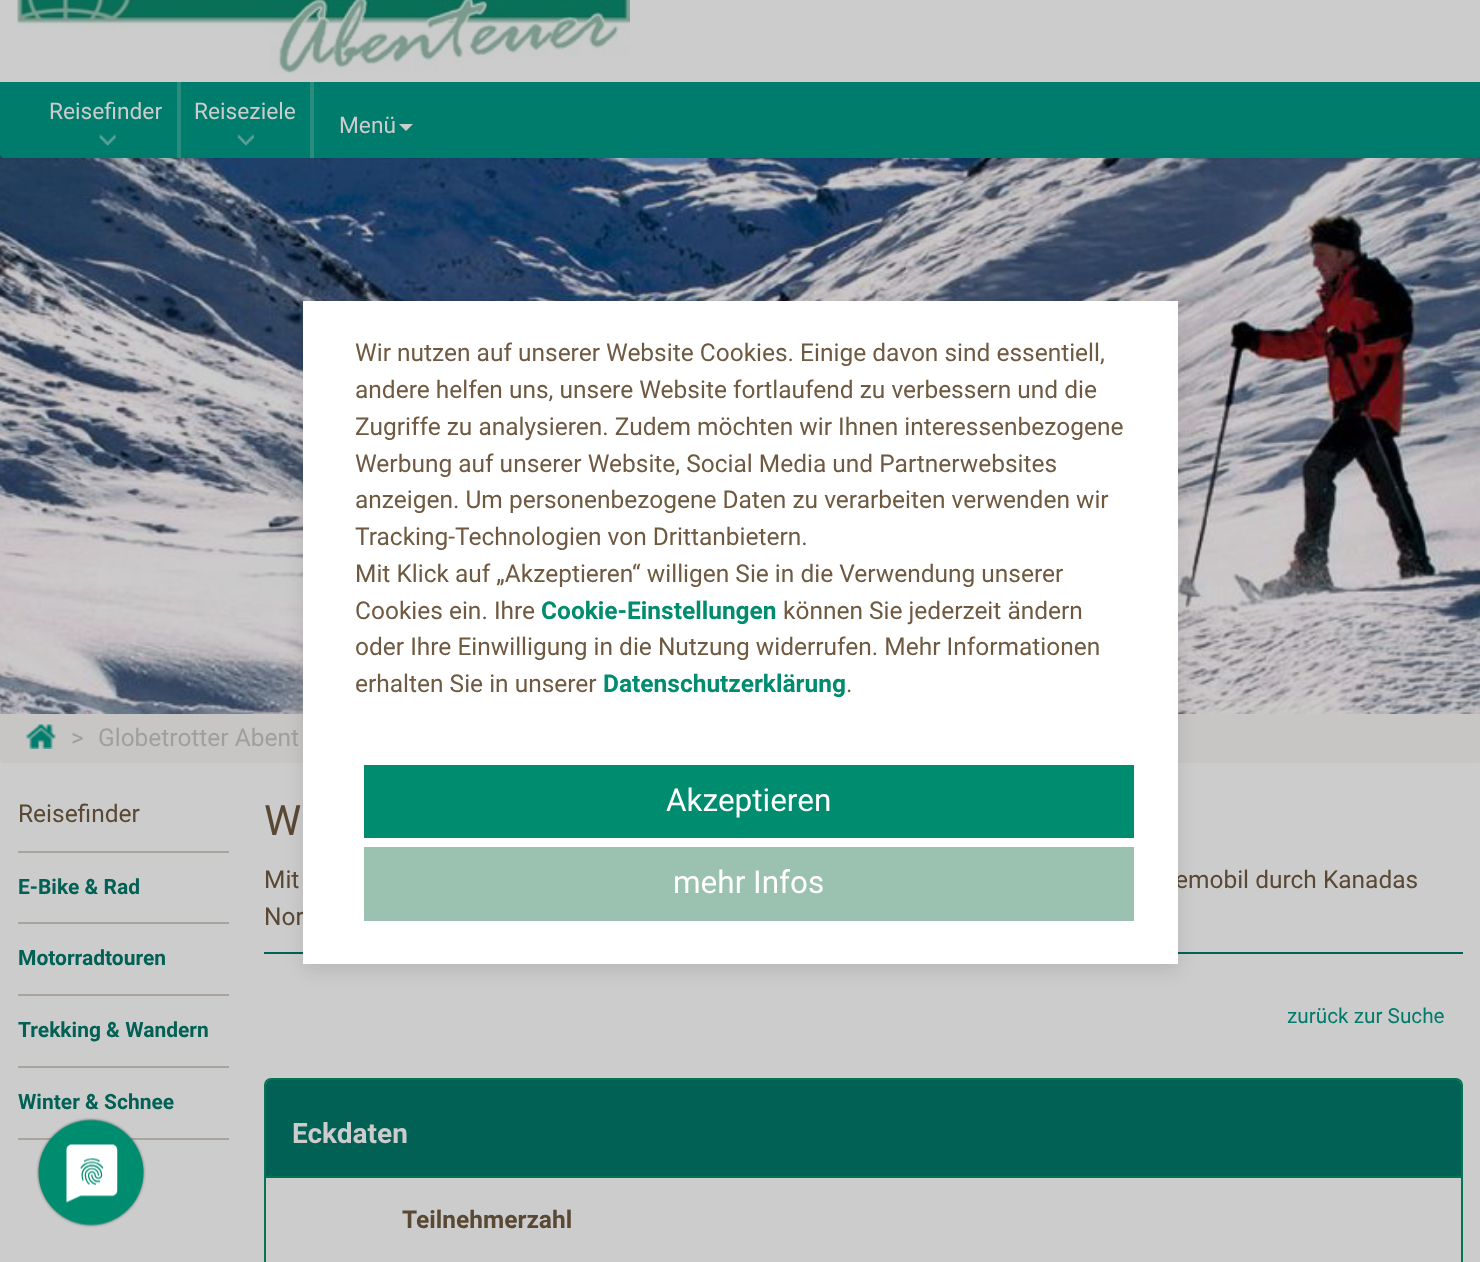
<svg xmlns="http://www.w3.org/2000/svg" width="1480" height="1262">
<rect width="100%" height="100%" fill="#ccc"/>
<image x="17" y="0" width="613" height="74" href="media/1.png"/>
<image x="0" y="154" width="1480" height="560" href="media/4.png"/>
<path d="M0 82h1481v72c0 2-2 4-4 4h-1473c-2 0-4-2-4-4z" fill="#007c6c"/>
<rect x="177" y="82" width="4" height="76" fill="#298c7f"/>
<image x="99" y="134" width="17" height="12" href="media/2.png"/>
<text x="49" y="119" style="font-family:Roboto;font-size:22.75px;fill:#ccc">Reisefinder</text>
<rect x="310" y="82" width="4" height="76" fill="#298c7f"/>
<image x="237" y="134" width="17" height="12" href="media/3.png"/>
<text x="194" y="119" style="font-family:Roboto;font-size:22.75px;fill:#ccc">Reiseziele</text>
<text x="339" y="133" style="font-family:Roboto;font-size:22.75px;fill:#ccc">Menü</text>
<path d="M399 124h14l-7 7z" fill="#ccc"/>
<path d="M0 714h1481v45c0 2-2 4-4 4h-1473c-2 0-4-2-4-4z" fill="#c7c6c5"/>
<image x="26" y="724" width="30" height="25" href="media/5.png"/>
<text x="71" y="746" style="font-family:Roboto;font-size:24.5px;fill:#9f9f9f">&gt;</text>
<text x="98" y="746" style="font-family:Roboto;font-size:24.5px;fill:#9f9f9f">Globetrotter Abent</text>
<rect x="18" y="851" width="211" height="2" fill="#aaa49e"/>
<text x="18" y="822" style="font-family:Roboto;font-size:24.5px;fill:#594834">Reisefinder</text>
<rect x="18" y="922" width="211" height="2" fill="#aaa49e"/>
<text x="18" y="894" style="font-family:Roboto;font-size:21px;font-weight:bold;fill:#006154">E-Bike &amp; Rad</text>
<rect x="18" y="994" width="211" height="2" fill="#aaa49e"/>
<text x="18" y="965" style="font-family:Roboto;font-size:21px;font-weight:bold;fill:#006154">Motorradtouren</text>
<rect x="18" y="1066" width="211" height="2" fill="#aaa49e"/>
<text x="18" y="1037" style="font-family:Roboto;font-size:21px;font-weight:bold;fill:#006154">Trekking &amp; Wandern</text>
<rect x="18" y="1138" width="211" height="2" fill="#aaa49e"/>
<text x="18" y="1109" style="font-family:Roboto;font-size:21px;font-weight:bold;fill:#006154">Winter &amp; Schnee</text>
<text x="264" y="835" style="font-family:Roboto;font-size:42px;fill:#594834">W</text>
<text x="264" y="888" style="font-family:Roboto;font-size:24.5px;fill:#594834">Mit</text>
<text x="1175" y="888" style="font-family:Roboto;font-size:24.5px;fill:#594834">emobil durch Kanadas</text>
<text x="264" y="925" style="font-family:Roboto;font-size:24.5px;fill:#594834">Nor</text>
<rect x="264" y="952" width="1199" height="2" fill="#006154"/>
<text x="1287" y="1023" style="font-family:Roboto;font-size:20.75px;fill:#007c6c">zurück zur Suche</text>
<rect x="265" y="1079" width="1197" height="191" rx="6" fill="none" stroke="#007652" stroke-width="2"/>
<path d="M271 1080h1185c3 0 5 2 5 5v93h-1195v-93c0-3 2-5 5-5z" fill="#006154"/>
<rect x="266" y="1176" width="1195" height="2" fill="#007652"/>
<text x="292" y="1143" style="font-family:Roboto;font-size:28px;font-weight:bold;fill:#ccc">Eckdaten</text>
<text x="402" y="1228" style="font-family:Roboto;font-size:24.5px;font-weight:bold;fill:#594834">Teilnehmerzahl</text>
<rect x="303" y="306" width="875" height="664" fill="#0000001a" filter="blur(9px)"/>
<rect x="303" y="301" width="875" height="663" fill="#fff"/>
<text x="355" y="361" style="font-family:Roboto;font-size:24.5px;fill:#6f5a41">Wir nutzen auf unserer Website Cookies. Einige davon sind essentiell,</text>
<text x="355" y="398" style="font-family:Roboto;font-size:24.5px;fill:#6f5a41">andere helfen uns, unsere Website fortlaufend zu verbessern und die</text>
<text x="355" y="435" style="font-family:Roboto;font-size:24.5px;fill:#6f5a41">Zugriffe zu analysieren. Zudem möchten wir Ihnen interessenbezogene</text>
<text x="355" y="472" style="font-family:Roboto;font-size:24.5px;fill:#6f5a41">Werbung auf unserer Website, Social Media und Partnerwebsites</text>
<text x="355" y="508" style="font-family:Roboto;font-size:24.5px;fill:#6f5a41">anzeigen. Um personenbezogene Daten zu verarbeiten verwenden wir</text>
<text x="355" y="545" style="font-family:Roboto;font-size:24.5px;fill:#6f5a41">Tracking-Technologien von Drittanbietern.</text>
<text x="355" y="582" style="font-family:Roboto;font-size:24.5px;fill:#6f5a41">Mit Klick auf „Akzeptieren“ willigen Sie in die Verwendung unserer</text>
<text x="355" y="619" style="font-family:Roboto;font-size:24.5px;fill:#6f5a41">Cookies ein. Ihre</text>
<text x="541" y="619" style="font-family:Roboto;font-size:24.5px;font-weight:bold;fill:#008c6f">Cookie-Einstellungen</text>
<text x="783" y="619" style="font-family:Roboto;font-size:24.5px;fill:#6f5a41">können Sie jederzeit ändern</text>
<text x="355" y="655" style="font-family:Roboto;font-size:24.5px;fill:#6f5a41">oder Ihre Einwilligung in die Nutzung widerrufen. Mehr Informationen</text>
<text x="355" y="692" style="font-family:Roboto;font-size:24.5px;fill:#6f5a41">erhalten Sie in unserer</text>
<text x="603" y="692" style="font-family:Roboto;font-size:24.5px;font-weight:bold;fill:#008c6f">Datenschutzerklärung</text>
<text x="846" y="692" style="font-family:Roboto;font-size:24.5px;fill:#6f5a41">.</text>
<rect x="364" y="765" width="770" height="73" fill="#008c6f"/>
<text x="666" y="811" style="font-family:Roboto;font-size:31.5px;fill:#fff">Akzeptieren</text>
<rect x="364" y="847" width="770" height="74" fill="#9bc2b1"/>
<text x="673" y="893" style="font-family:Roboto;font-size:31.5px;fill:#fff">mehr Infos</text>
<image x="36" y="1117" width="110" height="111" href="media/6.png"/>
</svg>
